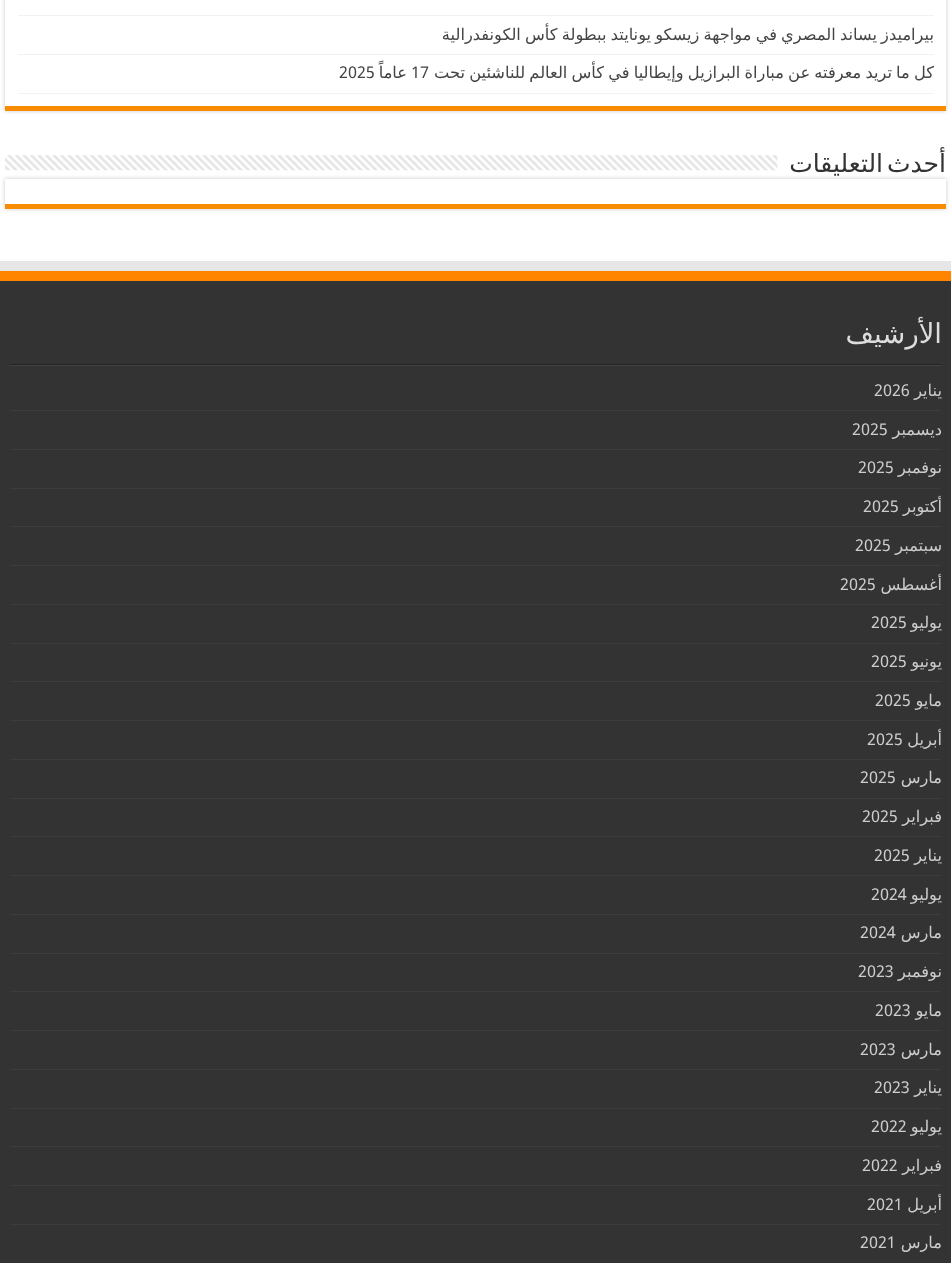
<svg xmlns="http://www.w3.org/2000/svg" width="951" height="1263">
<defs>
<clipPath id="clip1"><path d="M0 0h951v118h-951zm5-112h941v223h-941z" clip-rule="evenodd"/></clipPath>
<clipPath id="clip2"><rect x="18" y="16" width="916" height="38"/></clipPath>
<clipPath id="clip3"><rect x="18" y="55" width="916" height="38"/></clipPath>
</defs>
<rect width="100%" height="100%" fill="#fff"/>
<g clip-path="url(#clip1)">
<rect x="5" y="-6" width="941" height="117" fill="#cacaca" filter="blur(2px)"/>
</g>
<rect x="5" y="106" width="941" height="5" fill="#f88c00"/>
<rect x="18" y="15" width="916" height="1" fill="#f2f2f2"/>
<rect x="18" y="54" width="916" height="1" fill="#f2f2f2"/>
<g clip-path="url(#clip2)">
<text x="934" y="40" word-spacing="-1" style="font-family:DejaVu Sans;font-size:16.25px;direction:rtl;fill:#444">بيراميدز يساند المصري في مواجهة زيسكو يونايتد ببطولة كأس الكونفدرالية</text>
</g>
<rect x="18" y="93" width="916" height="1" fill="#f2f2f2"/>
<g clip-path="url(#clip3)">
<text x="934" y="78" word-spacing="-1" style="font-family:DejaVu Sans;font-size:16.25px;direction:rtl;fill:#444">كل ما تريد معرفته عن مباراة البرازيل وإيطاليا في كأس العالم للناشئين تحت</text>
</g>
<text x="411" y="78" style="font-family:Droid Sans;font-size:16.25px;fill:#444">17</text>
<text x="407" y="78" style="font-family:DejaVu Sans;font-size:16.25px;direction:rtl;fill:#444">عاماً</text>
<text x="339" y="78" style="font-family:Droid Sans;font-size:16.25px;fill:#444">2025</text>
<rect x="5" y="179" width="941" height="30" fill="#cacaca" filter="blur(2px)"/>
<text x="946" y="172" word-spacing="-4" style="font-family:DejaVu Sans;font-size:25px;direction:rtl;fill:#333">أحدث التعليقات</text>
<image x="5" y="155" width="773" height="16" href="media/1.png"/>
<rect x="5" y="179" width="941" height="25" fill="#fff"/>
<rect x="5" y="204" width="941" height="5" fill="#f88c00"/>
<rect y="261" width="951" height="10" fill="#e6e6e6"/>
<rect y="281" width="951" height="982" fill="#333"/>
<rect y="271" width="951" height="10" fill="#ff8500"/>
<rect x="10" y="364" width="931" height="1" fill="#222"/>
<text x="942" y="343" style="font-family:DejaVu Sans;font-size:27.5px;direction:rtl;fill:#ddd">الأرشيف</text>
<rect x="10" y="365" width="931" height="1" fill="#444"/>
<rect x="10" y="410" width="931" height="1" fill="#3c3c3c"/>
<text x="942" y="396" style="font-family:DejaVu Sans;font-size:16.25px;direction:rtl;fill:#ccc">يناير</text>
<text x="874" y="396" style="font-family:Droid Sans;font-size:16.25px;fill:#ccc">2026</text>
<rect x="10" y="449" width="931" height="1" fill="#3c3c3c"/>
<text x="942" y="435" style="font-family:DejaVu Sans;font-size:16.25px;direction:rtl;fill:#ccc">ديسمبر</text>
<text x="852" y="435" style="font-family:Droid Sans;font-size:16.25px;fill:#ccc">2025</text>
<rect x="10" y="488" width="931" height="1" fill="#3c3c3c"/>
<text x="942" y="473" style="font-family:DejaVu Sans;font-size:16.25px;direction:rtl;fill:#ccc">نوفمبر</text>
<text x="858" y="473" style="font-family:Droid Sans;font-size:16.25px;fill:#ccc">2025</text>
<rect x="10" y="526" width="931" height="1" fill="#3c3c3c"/>
<text x="942" y="512" style="font-family:DejaVu Sans;font-size:16.25px;direction:rtl;fill:#ccc">أكتوبر</text>
<text x="863" y="512" style="font-family:Droid Sans;font-size:16.25px;fill:#ccc">2025</text>
<rect x="10" y="565" width="931" height="1" fill="#3c3c3c"/>
<text x="942" y="551" style="font-family:DejaVu Sans;font-size:16.25px;direction:rtl;fill:#ccc">سبتمبر</text>
<text x="855" y="551" style="font-family:Droid Sans;font-size:16.25px;fill:#ccc">2025</text>
<rect x="10" y="604" width="931" height="1" fill="#3c3c3c"/>
<text x="942" y="590" style="font-family:DejaVu Sans;font-size:16.25px;direction:rtl;fill:#ccc">أغسطس</text>
<text x="840" y="590" style="font-family:Droid Sans;font-size:16.25px;fill:#ccc">2025</text>
<rect x="10" y="643" width="931" height="1" fill="#3c3c3c"/>
<text x="942" y="628" style="font-family:DejaVu Sans;font-size:16.25px;direction:rtl;fill:#ccc">يوليو</text>
<text x="871" y="628" style="font-family:Droid Sans;font-size:16.25px;fill:#ccc">2025</text>
<rect x="10" y="681" width="931" height="1" fill="#3c3c3c"/>
<text x="942" y="667" style="font-family:DejaVu Sans;font-size:16.25px;direction:rtl;fill:#ccc">يونيو</text>
<text x="871" y="667" style="font-family:Droid Sans;font-size:16.25px;fill:#ccc">2025</text>
<rect x="10" y="720" width="931" height="1" fill="#3c3c3c"/>
<text x="942" y="706" style="font-family:DejaVu Sans;font-size:16.25px;direction:rtl;fill:#ccc">مايو</text>
<text x="875" y="706" style="font-family:Droid Sans;font-size:16.25px;fill:#ccc">2025</text>
<rect x="10" y="759" width="931" height="1" fill="#3c3c3c"/>
<text x="942" y="745" style="font-family:DejaVu Sans;font-size:16.25px;direction:rtl;fill:#ccc">أبريل</text>
<text x="867" y="745" style="font-family:Droid Sans;font-size:16.25px;fill:#ccc">2025</text>
<rect x="10" y="798" width="931" height="1" fill="#3c3c3c"/>
<text x="942" y="783" style="font-family:DejaVu Sans;font-size:16.25px;direction:rtl;fill:#ccc">مارس</text>
<text x="860" y="783" style="font-family:Droid Sans;font-size:16.25px;fill:#ccc">2025</text>
<rect x="10" y="836" width="931" height="1" fill="#3c3c3c"/>
<text x="942" y="822" style="font-family:DejaVu Sans;font-size:16.25px;direction:rtl;fill:#ccc">فبراير</text>
<text x="862" y="822" style="font-family:Droid Sans;font-size:16.25px;fill:#ccc">2025</text>
<rect x="10" y="875" width="931" height="1" fill="#3c3c3c"/>
<text x="942" y="861" style="font-family:DejaVu Sans;font-size:16.25px;direction:rtl;fill:#ccc">يناير</text>
<text x="874" y="861" style="font-family:Droid Sans;font-size:16.25px;fill:#ccc">2025</text>
<rect x="10" y="914" width="931" height="1" fill="#3c3c3c"/>
<text x="942" y="900" style="font-family:DejaVu Sans;font-size:16.25px;direction:rtl;fill:#ccc">يوليو</text>
<text x="871" y="900" style="font-family:Droid Sans;font-size:16.25px;fill:#ccc">2024</text>
<rect x="10" y="953" width="931" height="1" fill="#3c3c3c"/>
<text x="942" y="938" style="font-family:DejaVu Sans;font-size:16.25px;direction:rtl;fill:#ccc">مارس</text>
<text x="860" y="938" style="font-family:Droid Sans;font-size:16.25px;fill:#ccc">2024</text>
<rect x="10" y="991" width="931" height="1" fill="#3c3c3c"/>
<text x="942" y="977" style="font-family:DejaVu Sans;font-size:16.25px;direction:rtl;fill:#ccc">نوفمبر</text>
<text x="858" y="977" style="font-family:Droid Sans;font-size:16.25px;fill:#ccc">2023</text>
<rect x="10" y="1030" width="931" height="1" fill="#3c3c3c"/>
<text x="942" y="1016" style="font-family:DejaVu Sans;font-size:16.25px;direction:rtl;fill:#ccc">مايو</text>
<text x="875" y="1016" style="font-family:Droid Sans;font-size:16.25px;fill:#ccc">2023</text>
<rect x="10" y="1069" width="931" height="1" fill="#3c3c3c"/>
<text x="942" y="1055" style="font-family:DejaVu Sans;font-size:16.25px;direction:rtl;fill:#ccc">مارس</text>
<text x="860" y="1055" style="font-family:Droid Sans;font-size:16.25px;fill:#ccc">2023</text>
<rect x="10" y="1108" width="931" height="1" fill="#3c3c3c"/>
<text x="942" y="1093" style="font-family:DejaVu Sans;font-size:16.25px;direction:rtl;fill:#ccc">يناير</text>
<text x="874" y="1093" style="font-family:Droid Sans;font-size:16.25px;fill:#ccc">2023</text>
<rect x="10" y="1146" width="931" height="1" fill="#3c3c3c"/>
<text x="942" y="1132" style="font-family:DejaVu Sans;font-size:16.25px;direction:rtl;fill:#ccc">يوليو</text>
<text x="871" y="1132" style="font-family:Droid Sans;font-size:16.25px;fill:#ccc">2022</text>
<rect x="10" y="1185" width="931" height="1" fill="#3c3c3c"/>
<text x="942" y="1171" style="font-family:DejaVu Sans;font-size:16.25px;direction:rtl;fill:#ccc">فبراير</text>
<text x="862" y="1171" style="font-family:Droid Sans;font-size:16.25px;fill:#ccc">2022</text>
<rect x="10" y="1224" width="931" height="1" fill="#3c3c3c"/>
<text x="942" y="1210" style="font-family:DejaVu Sans;font-size:16.25px;direction:rtl;fill:#ccc">أبريل</text>
<text x="867" y="1210" style="font-family:Droid Sans;font-size:16.25px;fill:#ccc">2021</text>
<text x="942" y="1248" style="font-family:DejaVu Sans;font-size:16.25px;direction:rtl;fill:#ccc">مارس</text>
<text x="860" y="1248" style="font-family:Droid Sans;font-size:16.25px;fill:#ccc">2021</text>
</svg>
